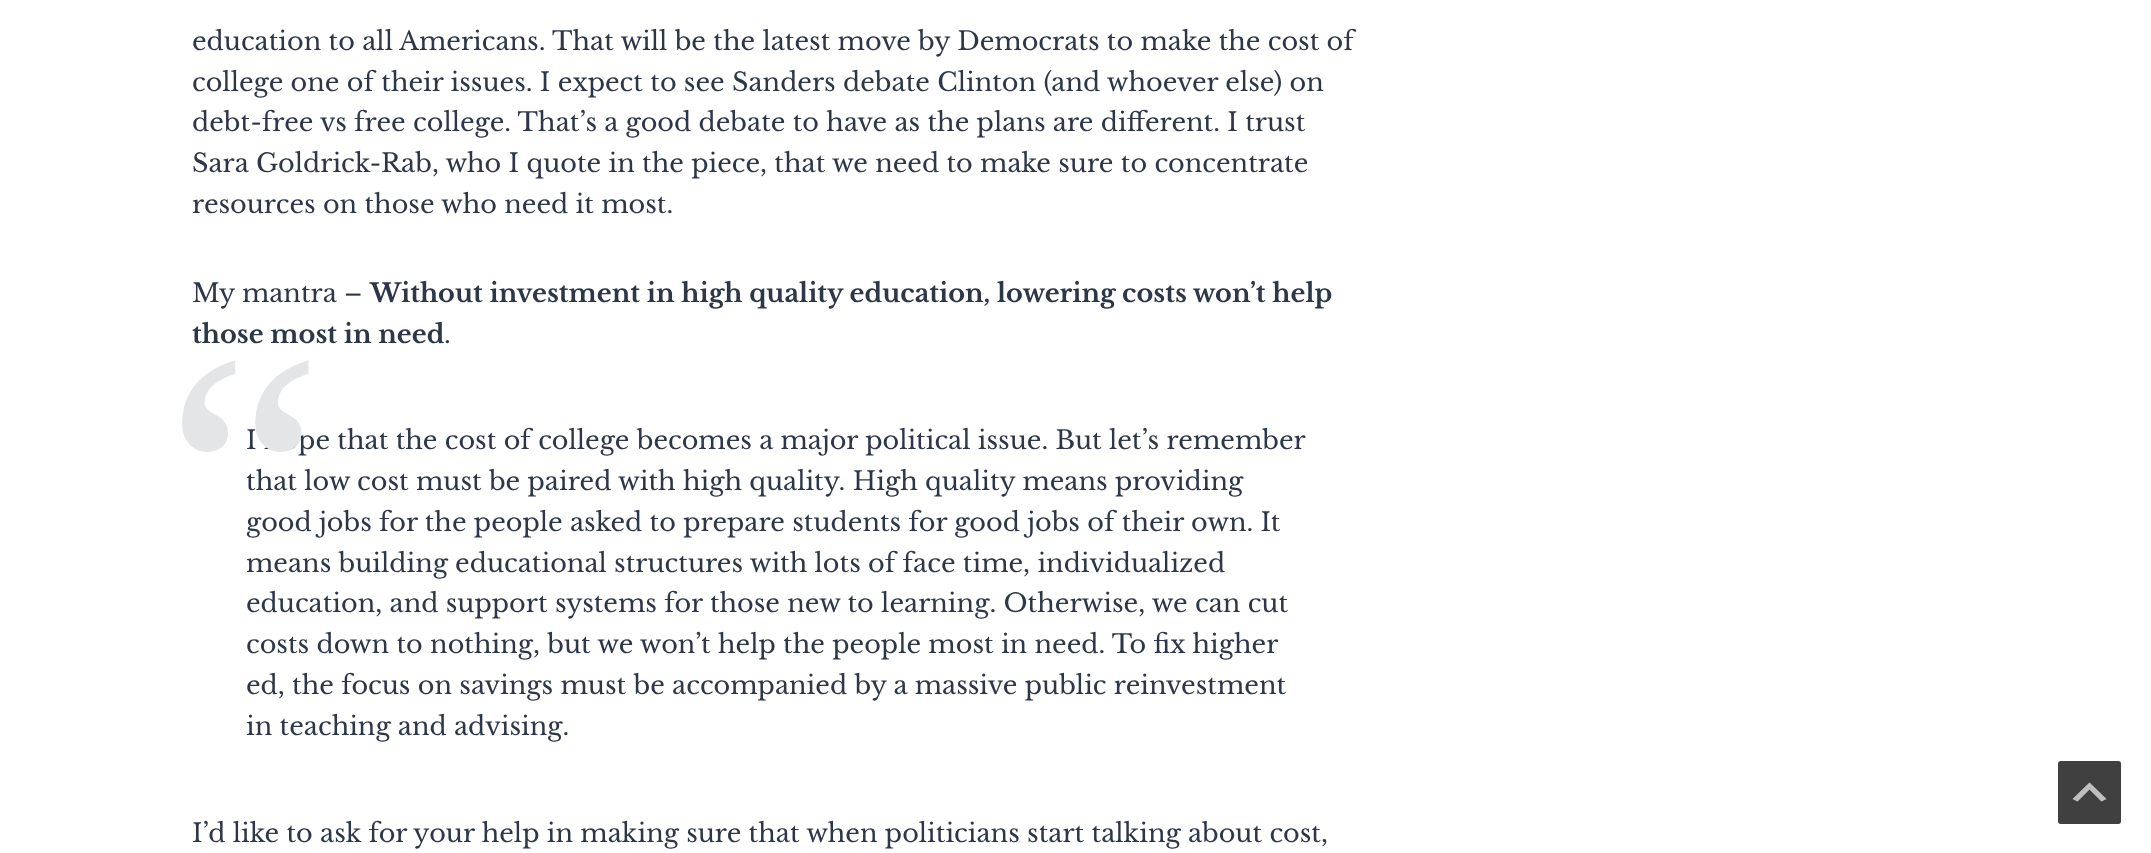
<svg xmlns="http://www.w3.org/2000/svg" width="2151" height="853">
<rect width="100%" height="100%" fill="#fff"/>
<text x="192" y="50" style="font-family:Libre Baskerville;font-size:25.5px;fill:#2d3748">education to all Americans. That will be the latest move by Democrats to make the cost of</text>
<text x="192" y="91" style="font-family:Libre Baskerville;font-size:25.5px;fill:#2d3748">college one of their issues. I expect to see Sanders debate Clinton (and whoever else) on</text>
<text x="192" y="131" style="font-family:Libre Baskerville;font-size:25.5px;fill:#2d3748">debt-free vs free college. That’s a good debate to have as the plans are different. I trust</text>
<text x="192" y="172" style="font-family:Libre Baskerville;font-size:25.5px;fill:#2d3748">Sara Goldrick-Rab, who I quote in the piece, that we need to make sure to concentrate</text>
<text x="192" y="213" style="font-family:Libre Baskerville;font-size:25.5px;fill:#2d3748">resources on those who need it most.</text>
<text x="192" y="302" style="font-family:Libre Baskerville;font-size:25.5px;fill:#2d3748">My mantra –</text>
<text x="370" y="302" style="font-family:Libre Baskerville;font-size:25.5px;font-weight:bold;fill:#2d3748">Without investment in high quality education, lowering costs won’t help</text>
<text x="192" y="343" style="font-family:Libre Baskerville;font-size:25.5px;font-weight:bold;fill:#2d3748">those most in need</text>
<text x="444" y="343" style="font-family:Libre Baskerville;font-size:25.5px;fill:#2d3748">.</text>
<text x="246" y="449" style="font-family:Libre Baskerville;font-size:25.5px;fill:#2d3748">I hope that the cost of college becomes a major political issue. But let’s remember</text>
<text x="165" y="598" style="font-family:Liberation Serif;font-size:357px;fill:#e3e5e7">“</text>
<text x="246" y="490" style="font-family:Libre Baskerville;font-size:25.5px;fill:#2d3748">that low cost must be paired with high quality. High quality means providing</text>
<text x="246" y="531" style="font-family:Libre Baskerville;font-size:25.5px;fill:#2d3748">good jobs for the people asked to prepare students for good jobs of their own. It</text>
<text x="246" y="572" style="font-family:Libre Baskerville;font-size:25.5px;fill:#2d3748">means building educational structures with lots of face time, individualized</text>
<text x="246" y="612" style="font-family:Libre Baskerville;font-size:25.5px;fill:#2d3748">education, and support systems for those new to learning. Otherwise, we can cut</text>
<text x="246" y="653" style="font-family:Libre Baskerville;font-size:25.5px;fill:#2d3748">costs down to nothing, but we won’t help the people most in need. To fix higher</text>
<text x="246" y="694" style="font-family:Libre Baskerville;font-size:25.5px;fill:#2d3748">ed, the focus on savings must be accompanied by a massive public reinvestment</text>
<text x="246" y="735" style="font-family:Libre Baskerville;font-size:25.5px;fill:#2d3748">in teaching and advising.</text>
<text x="192" y="842" style="font-family:Libre Baskerville;font-size:25.5px;fill:#2d3748">I’d like to ask for your help in making sure that when politicians start talking about cost,</text>
<rect x="2058" y="761" width="63" height="63" rx="3" fill="#808080"/>
<path d="M2101.5 801.5l-12-12l-12 12l-5-2.5l17-16.5l17 16.5z" fill="#fff"/>
<rect x="2058" y="761" width="63" height="63" rx="3" fill="#00000080"/>
<path d="M2101.5 801.5l-12-12l-12 12l-5-2.5l17-16.5l17 16.5z" fill="#ffffff80"/>
</svg>
